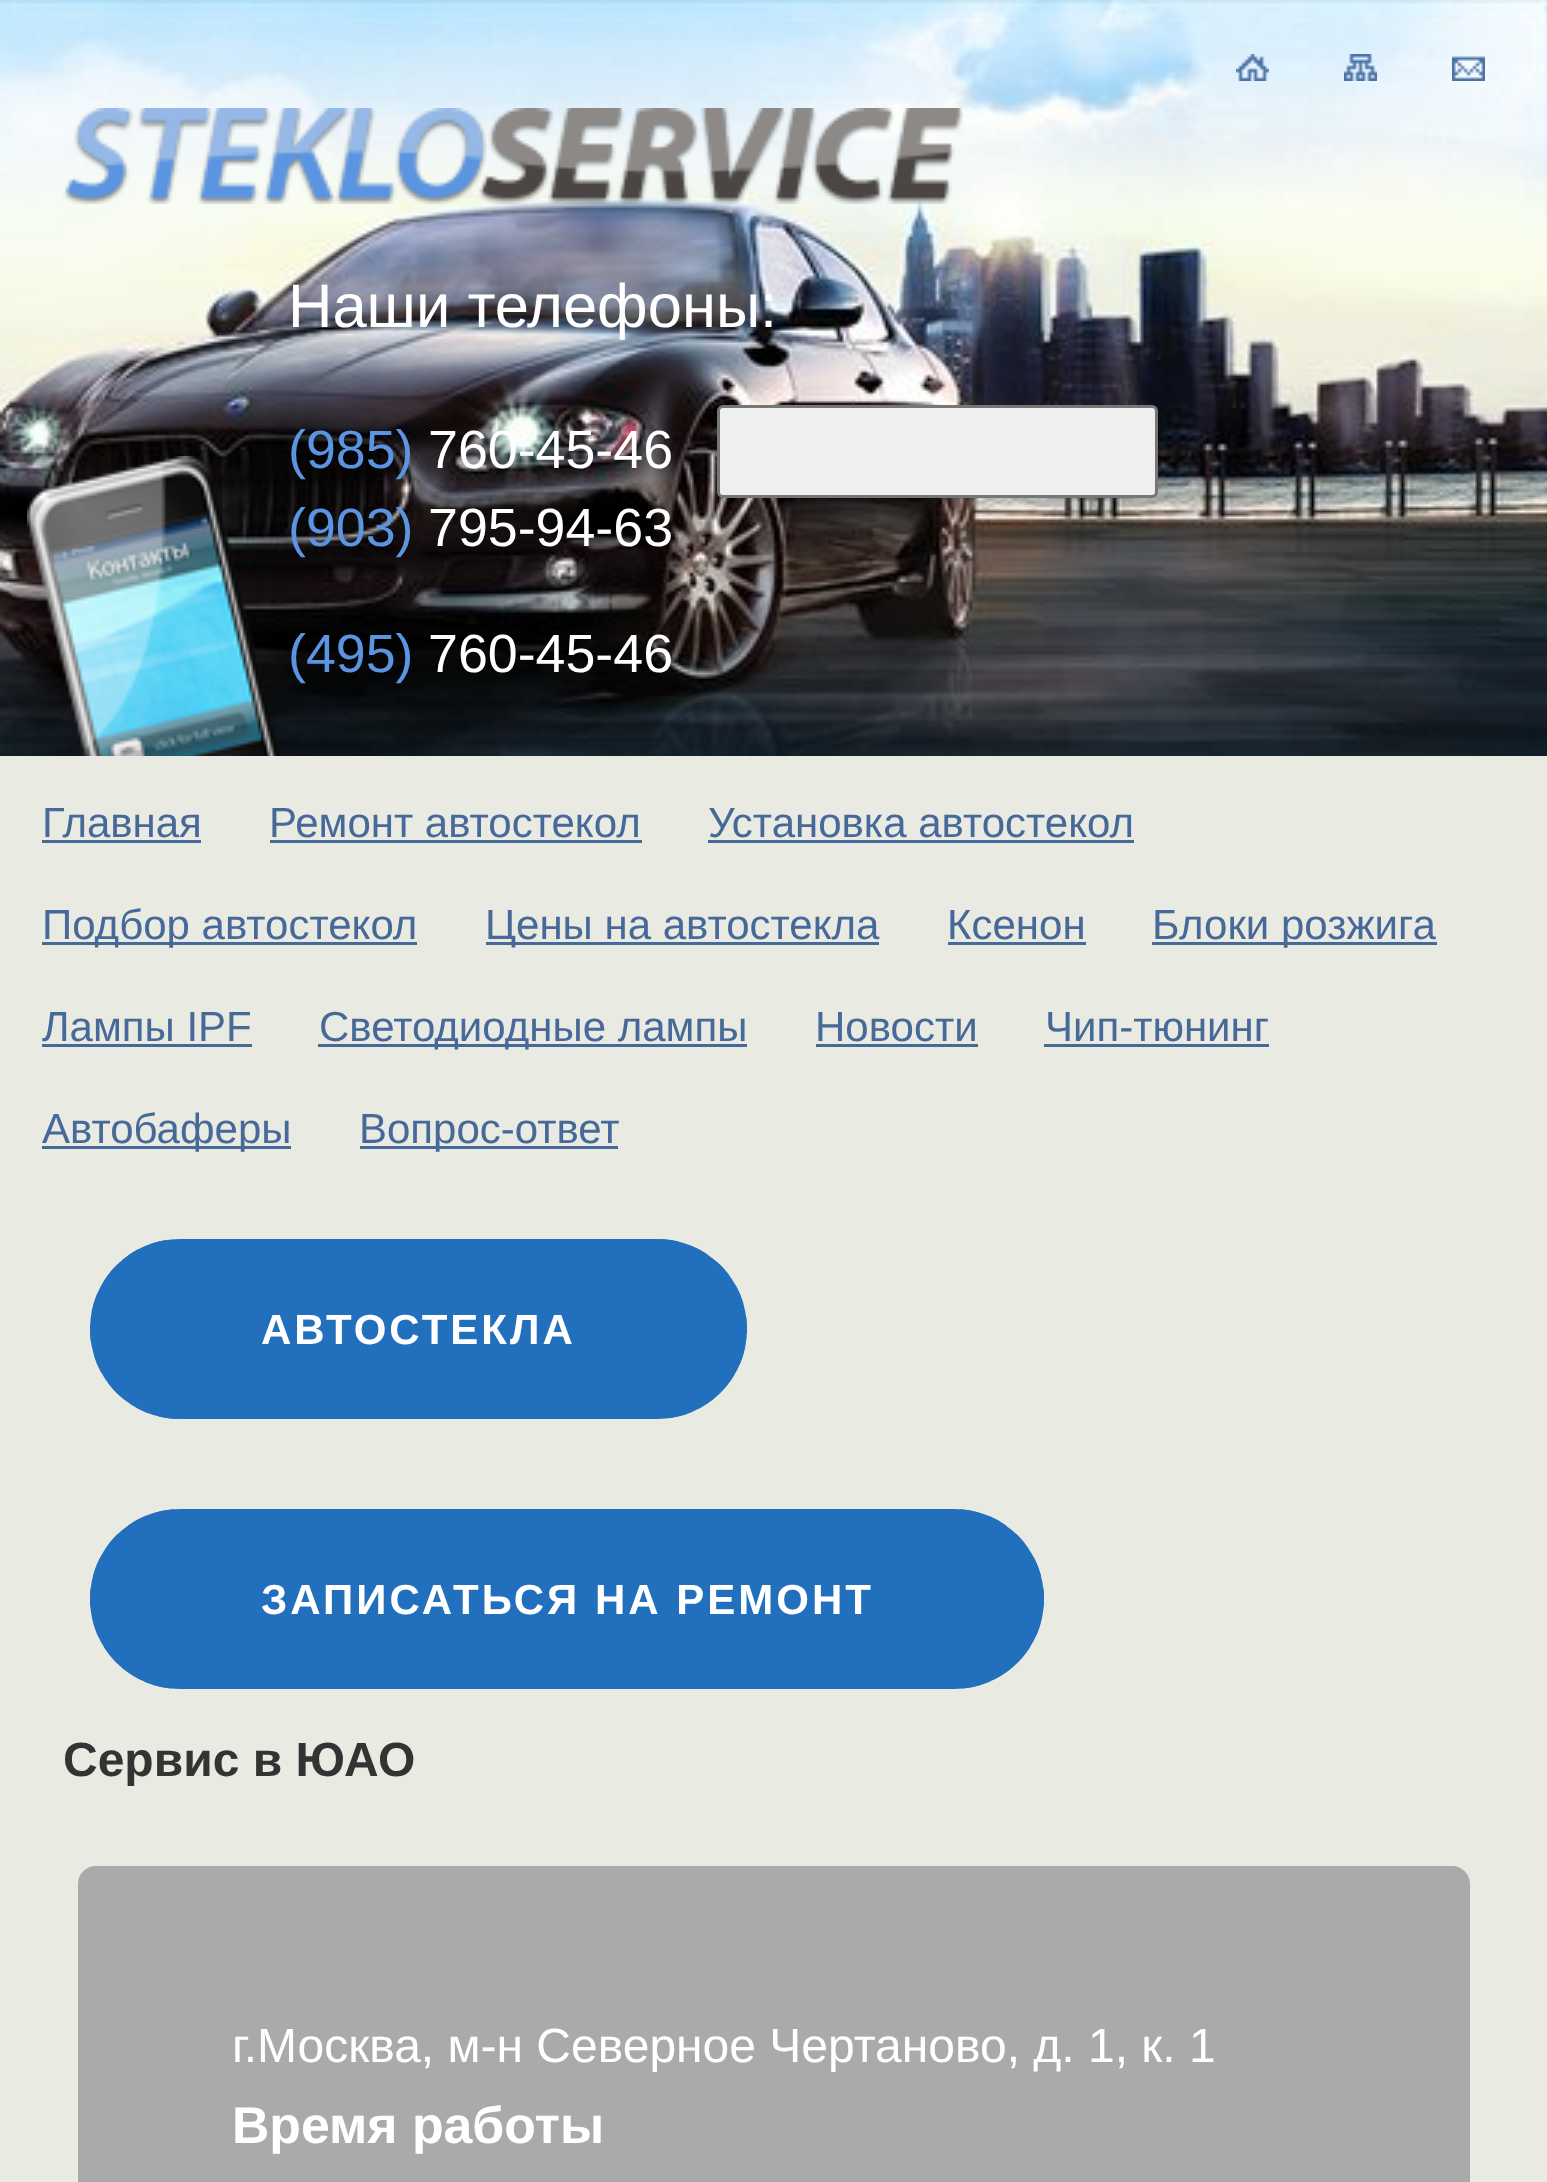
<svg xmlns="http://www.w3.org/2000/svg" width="1547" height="2182">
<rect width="100%" height="100%" fill="#e9eae2"/>
<image x="0" y="0" width="1547" height="756" href="media/1.png"/>
<image x="1236" y="54" width="33" height="27" href="media/2.png"/>
<image x="1344" y="54" width="33" height="27" href="media/3.png"/>
<image x="1452" y="56" width="33" height="25" href="media/4.png"/>
<image x="63" y="108" width="900" height="96" href="media/5.png"/>
<image x="27" y="456" width="253" height="300" href="media/6.png"/>
<text x="288" y="327" style="font-family:Liberation Sans;font-size:61.5px;fill:#fff">Наши телефоны:</text>
<text x="288" y="468" style="font-family:Liberation Sans;font-size:53.75px;fill:#5b95e1">(985)</text>
<text x="428" y="468" style="font-family:Liberation Sans;font-size:53.75px;fill:#fff">760-45-46</text>
<rect x="718.5" y="406.5" width="438" height="90" rx="4.5" fill="#efefef" stroke="#767676" stroke-width="3"/>
<text x="288" y="546" style="font-family:Liberation Sans;font-size:53.75px;fill:#5b95e1">(903)</text>
<text x="428" y="546" style="font-family:Liberation Sans;font-size:53.75px;fill:#fff">795-94-63</text>
<text x="288" y="672" style="font-family:Liberation Sans;font-size:53.75px;fill:#5b95e1">(495)</text>
<text x="428" y="672" style="font-family:Liberation Sans;font-size:53.75px;fill:#fff">760-45-46</text>
<text x="42" y="837" style="font-family:Liberation Sans;font-size:42px;fill:#466999">Главная</text>
<rect x="42" y="840" width="159" height="3" fill="#466999"/>
<text x="269" y="837" style="font-family:Liberation Sans;font-size:42px;fill:#466999">Ремонт автостекол</text>
<rect x="270" y="840" width="372" height="3" fill="#466999"/>
<text x="708" y="837" style="font-family:Liberation Sans;font-size:42px;fill:#466999">Установка автостекол</text>
<rect x="708" y="840" width="426" height="3" fill="#466999"/>
<rect x="42" y="942" width="375" height="3" fill="#466999"/>
<text x="42" y="939" style="font-family:Liberation Sans;font-size:42px;fill:#466999">Подбор автостекол</text>
<rect x="486" y="942" width="393" height="3" fill="#466999"/>
<text x="485" y="939" style="font-family:Liberation Sans;font-size:42px;fill:#466999">Цены на автостекла</text>
<text x="947" y="939" style="font-family:Liberation Sans;font-size:42px;fill:#466999">Ксенон</text>
<rect x="948" y="942" width="138" height="3" fill="#466999"/>
<rect x="1152" y="942" width="285" height="3" fill="#466999"/>
<text x="1152" y="939" style="font-family:Liberation Sans;font-size:42px;fill:#466999">Блоки розжига</text>
<text x="42" y="1041" style="font-family:Liberation Sans;font-size:42px;fill:#466999">Лампы IPF</text>
<rect x="42" y="1044" width="210" height="3" fill="#466999"/>
<rect x="318" y="1044" width="429" height="3" fill="#466999"/>
<text x="319" y="1041" style="font-family:Liberation Sans;font-size:42px;fill:#466999">Светодиодные лампы</text>
<text x="815" y="1041" style="font-family:Liberation Sans;font-size:42px;fill:#466999">Новости</text>
<rect x="816" y="1044" width="162" height="3" fill="#466999"/>
<text x="1045" y="1041" style="font-family:Liberation Sans;font-size:42px;fill:#466999">Чип-тюнинг</text>
<rect x="1044" y="1044" width="225" height="3" fill="#466999"/>
<rect x="42" y="1146" width="249" height="3" fill="#466999"/>
<text x="42" y="1143" style="font-family:Liberation Sans;font-size:42px;fill:#466999">Автобаферы</text>
<rect x="360" y="1146" width="258" height="3" fill="#466999"/>
<text x="359" y="1143" style="font-family:Liberation Sans;font-size:42px;fill:#466999">Вопрос-ответ</text>
<rect x="90" y="1239" width="657" height="180" rx="90" fill="#226fbe"/>
<path d="M180 1242h477c48 0 87 39 87 87c0 48-39 87-87 87h-477c-48 0-87-39-87-87c0-48 39-87 87-87z" fill="none" stroke="#226fbe" stroke-width="6" stroke-dasharray="18 12"/>
<text x="261" y="1344" style="font-family:Liberation Sans;font-size:42px;font-weight:bold;letter-spacing:3px;fill:#fff">АВТОСТЕКЛА</text>
<rect x="90" y="1509" width="954" height="180" rx="90" fill="#226fbe"/>
<path d="M180 1512h774c48 0 87 39 87 87c0 48-39 87-87 87h-774c-48 0-87-39-87-87c0-48 39-87 87-87z" fill="none" stroke="#226fbe" stroke-width="6" stroke-dasharray="18 12"/>
<text x="261" y="1614" style="font-family:Liberation Sans;font-size:42px;font-weight:bold;letter-spacing:3px;fill:#fff">ЗАПИСАТЬСЯ НА РЕМОНТ</text>
<text x="63" y="1776" style="font-family:Liberation Sans;font-size:48px;font-weight:bold;fill:#333">Сервис в ЮАО</text>
<rect x="78" y="1866" width="1392" height="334" rx="18" fill="#aaa"/>
<text x="232" y="2062" style="font-family:Liberation Sans;font-size:48px;fill:#fff">г.Москва, м-н Северное Чертаново, д. 1, к. 1</text>
<text x="232" y="2143" style="font-family:Liberation Sans;font-size:51.75px;font-weight:bold;fill:#fff">Время работы</text>
</svg>
